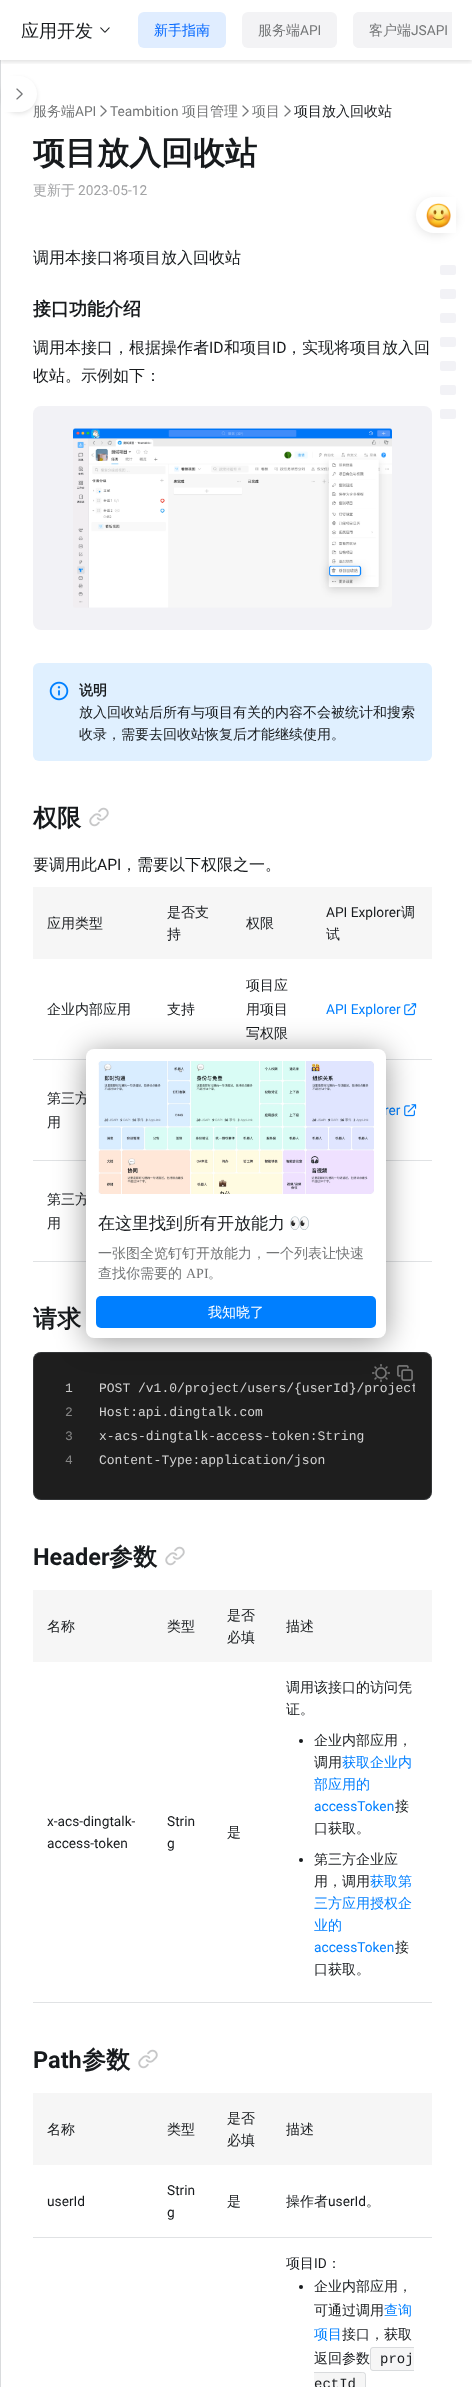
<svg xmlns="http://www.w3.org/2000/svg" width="472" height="2387">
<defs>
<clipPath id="clip1"><rect x="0" y="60" width="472" height="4"/></clipPath>
<clipPath id="clip2"><rect x="99" y="1377" width="316" height="106"/></clipPath>
</defs>
<rect width="100%" height="100%" fill="#fff"/>
<rect y="60" width="1" height="2327" fill="#f6f6f6"/>
<g clip-path="url(#clip1)">
<rect y="2" width="472" height="60" fill="#0000001f" filter="blur(2px)"/>
</g>
<text x="21" y="37" style="font-family:WenQuanYi Zen Hei;font-size:18px;font-weight:500;fill:#171a1d">应用开发</text>
<image x="100" y="27" width="10" height="6" href="media/1.png"/>
<rect x="138" y="12" width="88" height="36" rx="6" fill="#e0edff"/>
<text x="154" y="35" style="font-family:WenQuanYi Zen Hei;font-size:14px;font-weight:500;fill:#06f">新手指南</text>
<rect x="242" y="12" width="95" height="36" rx="6" fill="#f3f3f5"/>
<text x="258" y="35" style="font-family:WenQuanYi Zen Hei;font-size:14px;font-weight:500;fill:#747677">服务端</text>
<text x="300" y="35" style="font-family:Roboto;font-size:14px;fill:#747677">API</text>
<path d="M359 12h93v36h-93c-3.5 0-6-2.5-6-6v-24c0-3.5 2.5-6 6-6z" fill="#f3f3f5"/>
<text x="369" y="35" style="font-family:WenQuanYi Zen Hei;font-size:14px;font-weight:500;fill:#747677">客户端</text>
<text x="411" y="35" style="font-family:Roboto;font-size:14px;fill:#747677">JSAPI</text>
<rect y="60" width="1" height="2327" fill="#7e868e3d"/>
<rect x="1" y="78" width="36" height="36" rx="18" fill="#0000001a" filter="blur(2px)"/>
<text x="33" y="116" style="font-family:WenQuanYi Zen Hei;font-size:14px;font-weight:500;fill:#747677">服务端</text>
<path d="M1 76h18c10 0 18 8 18 18c0 10-8 18-18 18h-18z" fill="#fff"/>
<image x="16" y="88" width="7" height="12" href="media/2.png"/>
<text x="75" y="116" style="font-family:Roboto;font-size:14px;fill:#747677">API</text>
<image x="100" y="105" width="7" height="12" href="media/2.png"/>
<text x="110" y="116" style="font-family:Roboto;font-size:14px;fill:#747677">Teambition</text>
<text x="182" y="116" style="font-family:WenQuanYi Zen Hei;font-size:14px;font-weight:500;fill:#747677">项目管理</text>
<image x="242" y="105" width="7" height="12" href="media/2.png"/>
<text x="252" y="116" style="font-family:WenQuanYi Zen Hei;font-size:14px;font-weight:500;fill:#747677">项目</text>
<image x="284" y="105" width="7" height="12" href="media/2.png"/>
<text x="294" y="116" style="font-family:WenQuanYi Zen Hei;font-size:14px;font-weight:500;fill:#171a1d">项目放入回收站</text>
<text x="33" y="164" style="font-family:WenQuanYi Zen Hei;font-size:32px;font-weight:bold;fill:#171a1d">项目放入回收站</text>
<text x="33" y="195" style="font-family:WenQuanYi Zen Hei;font-size:14px;font-weight:500;fill:#a2a3a5">更新于</text>
<text x="78" y="195" style="font-family:Roboto;font-size:14px;fill:#a2a3a5">2023-05-12</text>
<text x="33" y="263" style="font-family:WenQuanYi Zen Hei;font-size:16px;font-weight:500;fill:#171a1d">调用本接口将项目放入回收站</text>
<text x="33" y="315" style="font-family:WenQuanYi Zen Hei;font-size:18px;font-weight:bold;fill:#171a1d">接口功能介绍</text>
<text x="33" y="353" style="font-family:WenQuanYi Zen Hei;font-size:16px;font-weight:500;fill:#171a1d">调用本接口，根据操作者</text>
<text x="209" y="353" style="font-family:Roboto;font-size:16px;fill:#171a1d">ID</text>
<text x="224" y="353" style="font-family:WenQuanYi Zen Hei;font-size:16px;font-weight:500;fill:#171a1d">和项目</text>
<text x="272" y="353" style="font-family:Roboto;font-size:16px;fill:#171a1d">ID</text>
<text x="286" y="353" style="font-family:WenQuanYi Zen Hei;font-size:16px;font-weight:500;fill:#171a1d">，实现将项目放入回</text>
<text x="33" y="381" style="font-family:WenQuanYi Zen Hei;font-size:16px;font-weight:500;fill:#171a1d">收站。示例如下：</text>
<image x="33" y="406" width="399" height="224" href="media/3.png"/>
<rect x="33" y="663" width="399" height="98" rx="6" fill="#e0f0ff"/>
<image x="49" y="681" width="20" height="20" href="media/4.png"/>
<text x="79" y="695" style="font-family:WenQuanYi Zen Hei;font-size:14px;font-weight:bold;fill:#171a1d">说明</text>
<text x="79" y="717" style="font-family:WenQuanYi Zen Hei;font-size:14px;font-weight:500;fill:#171a1d">放入回收站后所有与项目有关的内容不会被统计和搜索</text>
<text x="79" y="739" style="font-family:WenQuanYi Zen Hei;font-size:14px;font-weight:500;fill:#171a1d">收录，需要去回收站恢复后才能继续使用。</text>
<text x="33" y="826" style="font-family:WenQuanYi Zen Hei;font-size:24px;font-weight:bold;fill:#171a1d">权限</text>
<image x="89" y="807" width="20" height="20" href="media/5.png"/>
<text x="33" y="870" style="font-family:WenQuanYi Zen Hei;font-size:16px;font-weight:500;fill:#171a1d">要调用此</text>
<text x="97" y="870" style="font-family:Roboto;font-size:16px;fill:#171a1d">API</text>
<text x="121" y="870" style="font-family:WenQuanYi Zen Hei;font-size:16px;font-weight:500;fill:#171a1d">，需要以下权限之一。</text>
<rect x="33" y="887" width="399" height="72" fill="#f6f6f6"/>
<text x="47" y="928" style="font-family:WenQuanYi Zen Hei;font-size:14px;font-weight:500;fill:#171a1d">应用类型</text>
<text x="167" y="917" style="font-family:WenQuanYi Zen Hei;font-size:14px;font-weight:500;fill:#171a1d">是否支</text>
<text x="167" y="939" style="font-family:WenQuanYi Zen Hei;font-size:14px;font-weight:500;fill:#171a1d">持</text>
<text x="246" y="928" style="font-family:WenQuanYi Zen Hei;font-size:14px;font-weight:500;fill:#171a1d">权限</text>
<text x="326" y="917" style="font-family:Roboto;font-size:14px;fill:#171a1d">API Explorer</text>
<text x="401" y="917" style="font-family:WenQuanYi Zen Hei;font-size:14px;font-weight:500;fill:#171a1d">调</text>
<text x="326" y="939" style="font-family:WenQuanYi Zen Hei;font-size:14px;font-weight:500;fill:#171a1d">试</text>
<rect x="33" y="1059" width="399" height="1" fill="#e0e2e4"/>
<text x="47" y="1014" style="font-family:WenQuanYi Zen Hei;font-size:14px;font-weight:500;fill:#171a1d">企业内部应用</text>
<text x="167" y="1014" style="font-family:WenQuanYi Zen Hei;font-size:14px;font-weight:500;fill:#171a1d">支持</text>
<text x="246" y="990" style="font-family:WenQuanYi Zen Hei;font-size:14px;font-weight:500;fill:#171a1d">项目应</text>
<text x="246" y="1014" style="font-family:WenQuanYi Zen Hei;font-size:14px;font-weight:500;fill:#171a1d">用项目</text>
<text x="246" y="1038" style="font-family:WenQuanYi Zen Hei;font-size:14px;font-weight:500;fill:#171a1d">写权限</text>
<text x="326" y="1014" style="font-family:Roboto;font-size:14px;fill:#007fff">API Explorer</text>
<image x="404" y="1003" width="13" height="13" href="media/6.png"/>
<rect x="33" y="1160" width="399" height="1" fill="#e0e2e4"/>
<text x="47" y="1103" style="font-family:WenQuanYi Zen Hei;font-size:14px;font-weight:500;fill:#171a1d">第三方</text>
<text x="47" y="1127" style="font-family:WenQuanYi Zen Hei;font-size:14px;font-weight:500;fill:#171a1d">用</text>
<text x="384" y="1115" style="font-family:Roboto;font-size:14px;fill:#007fff">rer</text>
<image x="404" y="1104" width="13" height="13" href="media/6.png"/>
<rect x="33" y="1261" width="399" height="1" fill="#e0e2e4"/>
<text x="47" y="1204" style="font-family:WenQuanYi Zen Hei;font-size:14px;font-weight:500;fill:#171a1d">第三方</text>
<text x="47" y="1228" style="font-family:WenQuanYi Zen Hei;font-size:14px;font-weight:500;fill:#171a1d">用</text>
<text x="33" y="1327" style="font-family:WenQuanYi Zen Hei;font-size:24px;font-weight:bold;fill:#171a1d">请求</text>
<rect x="33" y="1352" width="399" height="148" rx="8" fill="#1e1e1e"/>
<rect x="33.5" y="1352.5" width="398" height="147" rx="7.5" fill="none" stroke="#7e868e3d"/>
<image x="372" y="1364" width="18" height="18" href="media/7.png"/>
<image x="397" y="1365" width="16" height="16" href="media/8.png"/>
<text x="65" y="1392" style="font-family:Liberation Mono;font-size:13px;fill:#c6c6c6">1</text>
<text x="65" y="1416" style="font-family:Liberation Mono;font-size:13px;fill:#858585">2</text>
<text x="65" y="1440" style="font-family:Liberation Mono;font-size:13px;fill:#858585">3</text>
<text x="65" y="1464" style="font-family:Liberation Mono;font-size:13px;fill:#858585">4</text>
<g clip-path="url(#clip2)">
<text x="99" y="1392" style="font-family:Liberation Mono;font-size:13px;fill:#d4d4d4">POST /v1.0/project/users/{userId}/project</text>
</g>
<text x="99" y="1416" style="font-family:Liberation Mono;font-size:13px;fill:#d4d4d4">Host:api.dingtalk.com</text>
<text x="99" y="1440" style="font-family:Liberation Mono;font-size:13px;fill:#d4d4d4">x-acs-dingtalk-access-token:String</text>
<text x="99" y="1464" style="font-family:Liberation Mono;font-size:13px;fill:#d4d4d4">Content-Type:application/json</text>
<text x="33" y="1565" style="font-family:Roboto;font-size:24px;font-weight:bold;fill:#171a1d">Header</text>
<text x="109" y="1565" style="font-family:WenQuanYi Zen Hei;font-size:24px;font-weight:bold;fill:#171a1d">参数</text>
<image x="165" y="1546" width="20" height="20" href="media/5.png"/>
<rect x="33" y="1590" width="399" height="72" fill="#f6f6f6"/>
<text x="47" y="1631" style="font-family:WenQuanYi Zen Hei;font-size:14px;font-weight:500;fill:#171a1d">名称</text>
<text x="167" y="1631" style="font-family:WenQuanYi Zen Hei;font-size:14px;font-weight:500;fill:#171a1d">类型</text>
<text x="227" y="1620" style="font-family:WenQuanYi Zen Hei;font-size:14px;font-weight:500;fill:#171a1d">是否</text>
<text x="227" y="1642" style="font-family:WenQuanYi Zen Hei;font-size:14px;font-weight:500;fill:#171a1d">必填</text>
<text x="286" y="1631" style="font-family:WenQuanYi Zen Hei;font-size:14px;font-weight:500;fill:#171a1d">描述</text>
<rect x="33" y="2002" width="399" height="1" fill="#e0e2e4"/>
<text x="47" y="1826" style="font-family:Roboto;font-size:14px;fill:#171a1d">x-acs-dingtalk-</text>
<text x="47" y="1848" style="font-family:Roboto;font-size:14px;fill:#171a1d">access-token</text>
<text x="167" y="1826" style="font-family:Roboto;font-size:14px;fill:#171a1d">Strin</text>
<text x="167" y="1848" style="font-family:Roboto;font-size:14px;fill:#171a1d">g</text>
<text x="227" y="1837" style="font-family:WenQuanYi Zen Hei;font-size:14px;font-weight:500;fill:#171a1d">是</text>
<text x="286" y="1692" style="font-family:WenQuanYi Zen Hei;font-size:14px;font-weight:500;fill:#171a1d">调用该接口的访问凭</text>
<text x="286" y="1714" style="font-family:WenQuanYi Zen Hei;font-size:14px;font-weight:500;fill:#171a1d">证。</text>
<circle cx="301" cy="1741" r="2" fill="#171a1d"/>
<text x="314" y="1745" style="font-family:WenQuanYi Zen Hei;font-size:14px;font-weight:500;fill:#171a1d">企业内部应用，</text>
<text x="314" y="1767" style="font-family:WenQuanYi Zen Hei;font-size:14px;font-weight:500;fill:#171a1d">调用</text>
<text x="342" y="1767" style="font-family:WenQuanYi Zen Hei;font-size:14px;font-weight:500;fill:#007fff">获取企业内</text>
<text x="314" y="1789" style="font-family:WenQuanYi Zen Hei;font-size:14px;font-weight:500;fill:#007fff">部应用的</text>
<text x="314" y="1811" style="font-family:Roboto;font-size:14px;fill:#007fff">accessToken</text>
<text x="395" y="1811" style="font-family:WenQuanYi Zen Hei;font-size:14px;font-weight:500;fill:#171a1d">接</text>
<text x="314" y="1833" style="font-family:WenQuanYi Zen Hei;font-size:14px;font-weight:500;fill:#171a1d">口获取。</text>
<circle cx="301" cy="1860" r="2" fill="#171a1d"/>
<text x="314" y="1864" style="font-family:WenQuanYi Zen Hei;font-size:14px;font-weight:500;fill:#171a1d">第三方企业应</text>
<text x="314" y="1886" style="font-family:WenQuanYi Zen Hei;font-size:14px;font-weight:500;fill:#171a1d">用，调用</text>
<text x="370" y="1886" style="font-family:WenQuanYi Zen Hei;font-size:14px;font-weight:500;fill:#007fff">获取第</text>
<text x="314" y="1908" style="font-family:WenQuanYi Zen Hei;font-size:14px;font-weight:500;fill:#007fff">三方应用授权企</text>
<text x="314" y="1930" style="font-family:WenQuanYi Zen Hei;font-size:14px;font-weight:500;fill:#007fff">业的</text>
<text x="314" y="1952" style="font-family:Roboto;font-size:14px;fill:#007fff">accessToken</text>
<text x="395" y="1952" style="font-family:WenQuanYi Zen Hei;font-size:14px;font-weight:500;fill:#171a1d">接</text>
<text x="314" y="1974" style="font-family:WenQuanYi Zen Hei;font-size:14px;font-weight:500;fill:#171a1d">口获取。</text>
<text x="33" y="2068" style="font-family:Roboto;font-size:24px;font-weight:bold;fill:#171a1d">Path</text>
<text x="82" y="2068" style="font-family:WenQuanYi Zen Hei;font-size:24px;font-weight:bold;fill:#171a1d">参数</text>
<image x="138" y="2049" width="20" height="20" href="media/5.png"/>
<rect x="33" y="2093" width="399" height="72" fill="#f6f6f6"/>
<text x="47" y="2134" style="font-family:WenQuanYi Zen Hei;font-size:14px;font-weight:500;fill:#171a1d">名称</text>
<text x="167" y="2134" style="font-family:WenQuanYi Zen Hei;font-size:14px;font-weight:500;fill:#171a1d">类型</text>
<text x="227" y="2123" style="font-family:WenQuanYi Zen Hei;font-size:14px;font-weight:500;fill:#171a1d">是否</text>
<text x="227" y="2145" style="font-family:WenQuanYi Zen Hei;font-size:14px;font-weight:500;fill:#171a1d">必填</text>
<text x="286" y="2134" style="font-family:WenQuanYi Zen Hei;font-size:14px;font-weight:500;fill:#171a1d">描述</text>
<rect x="33" y="2237" width="399" height="1" fill="#e0e2e4"/>
<text x="47" y="2206" style="font-family:Roboto;font-size:14px;fill:#171a1d">userId</text>
<text x="167" y="2195" style="font-family:Roboto;font-size:14px;fill:#171a1d">Strin</text>
<text x="167" y="2217" style="font-family:Roboto;font-size:14px;fill:#171a1d">g</text>
<text x="227" y="2206" style="font-family:WenQuanYi Zen Hei;font-size:14px;font-weight:500;fill:#171a1d">是</text>
<text x="286" y="2206" style="font-family:WenQuanYi Zen Hei;font-size:14px;font-weight:500;fill:#171a1d">操作者</text>
<text x="328" y="2206" style="font-family:Roboto;font-size:14px;fill:#171a1d">userId</text>
<text x="366" y="2206" style="font-family:WenQuanYi Zen Hei;font-size:14px;font-weight:500;fill:#171a1d">。</text>
<text x="286" y="2268" style="font-family:WenQuanYi Zen Hei;font-size:14px;font-weight:500;fill:#171a1d">项目</text>
<text x="314" y="2268" style="font-family:Roboto;font-size:14px;fill:#171a1d">ID</text>
<text x="327" y="2268" style="font-family:WenQuanYi Zen Hei;font-size:14px;font-weight:500;fill:#171a1d">：</text>
<circle cx="301" cy="2287" r="2" fill="#171a1d"/>
<text x="314" y="2291" style="font-family:WenQuanYi Zen Hei;font-size:14px;font-weight:500;fill:#171a1d">企业内部应用，</text>
<text x="314" y="2315" style="font-family:WenQuanYi Zen Hei;font-size:14px;font-weight:500;fill:#171a1d">可通过调用</text>
<text x="384" y="2315" style="font-family:WenQuanYi Zen Hei;font-size:14px;font-weight:500;fill:#007fff">查询</text>
<text x="314" y="2339" style="font-family:WenQuanYi Zen Hei;font-size:14px;font-weight:500;fill:#007fff">项目</text>
<text x="342" y="2339" style="font-family:WenQuanYi Zen Hei;font-size:14px;font-weight:500;fill:#171a1d">接口，获取</text>
<text x="314" y="2363" style="font-family:WenQuanYi Zen Hei;font-size:14px;font-weight:500;fill:#171a1d">返回参数</text>
<rect x="380" y="2348" width="34" height="22" fill="#f6f6f6"/>
<text x="380" y="2363" style="font-family:Liberation Mono;font-size:14px;fill:#171a1d">proj</text>
<path d="M373 2347h7v24h-7c-1.5 0-3-1.5-3-3v-18c0-1.5 1.5-3 3-3z" fill="#f6f6f6"/>
<path d="M373 2347h7v24h-7c-1.5 0-3-1.5-3-3v-18c0-1.5 1.5-3 3-3zm0 1h7v22h-7c-1 0-2-1-2-2v-18c0-1 1-2 2-2z" fill="#d9dbdd" fill-rule="evenodd"/>
<rect x="380" y="2347" width="34" height="1" fill="#d9dbdd"/>
<rect x="380" y="2370" width="34" height="1" fill="#d9dbdd"/>
<rect x="314" y="2373" width="42" height="14" fill="#f6f6f6"/>
<text x="314" y="2388" style="font-family:Liberation Mono;font-size:14px;fill:#171a1d">ectId</text>
<rect x="314" y="2372" width="42" height="1" fill="#d9dbdd"/>
<path d="M356 2372h7c1.5 0 3 1.5 3 3v12h-10z" fill="#f6f6f6"/>
<path d="M356 2372c11.5 0 10-.5 10 12c0 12.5 1.5 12-10 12zm0 1c11 0 9-1.5 9 11c0 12.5 2 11-9 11z" fill="#d9dbdd" fill-rule="evenodd"/>
<rect x="416" y="199" width="40" height="36" rx="18" fill="#0000001a" filter="blur(5px)"/>
<path d="M434 197h22v36h-22c-10 0-18-8-18-18c0-10 8-18 18-18z" fill="#fff"/>
<image x="426" y="203" width="25" height="25" href="media/9.png"/>
<rect x="440" y="265" width="16" height="10" rx="2" fill="#f2f2f6"/>
<rect x="440" y="289" width="16" height="10" rx="2" fill="#f2f2f6"/>
<rect x="440" y="313" width="16" height="10" rx="2" fill="#f2f2f6"/>
<rect x="440" y="337" width="16" height="10" rx="2" fill="#f2f2f6"/>
<rect x="440" y="361" width="16" height="10" rx="2" fill="#f2f2f6"/>
<rect x="440" y="385" width="16" height="10" rx="2" fill="#f2f2f6"/>
<rect x="440" y="409" width="16" height="10" rx="2" fill="#f2f2f6"/>
<rect x="86" y="1052" width="300" height="289" rx="8" fill="#00000066" filter="blur(15px)"/>
<rect x="86" y="1049" width="300" height="289" rx="8" fill="#fff"/>
<image x="98" y="1061" width="276" height="133" href="media/10.png"/>
<text x="98" y="1229" style="font-family:WenQuanYi Zen Hei;font-size:17px;font-weight:500;fill:#171a1d">在这里找到所有开放能力</text>
<text x="289" y="1229" style="font-family:Noto Color Emoji;font-size:17px;fill:#171a1d">👀</text>
<text x="98" y="1258" style="font-family:WenQuanYi Zen Hei;font-size:14px;font-weight:500;fill:#747677">一张图全览钉钉开放能力，一个列表让快速</text>
<text x="98" y="1278" style="font-family:WenQuanYi Zen Hei;font-size:14px;font-weight:500;fill:#747677">查找你需要的</text>
<text x="186" y="1278" style="font-family:Liberation Serif;font-size:14px;fill:#747677">API</text>
<text x="208" y="1278" style="font-family:WenQuanYi Zen Hei;font-size:14px;font-weight:500;fill:#747677">。</text>
<rect x="96" y="1296" width="280" height="32" rx="5" fill="#007fff"/>
<text x="208" y="1317" style="font-family:WenQuanYi Zen Hei;font-size:14px;font-weight:500;fill:#fff">我知晓了</text>
</svg>
